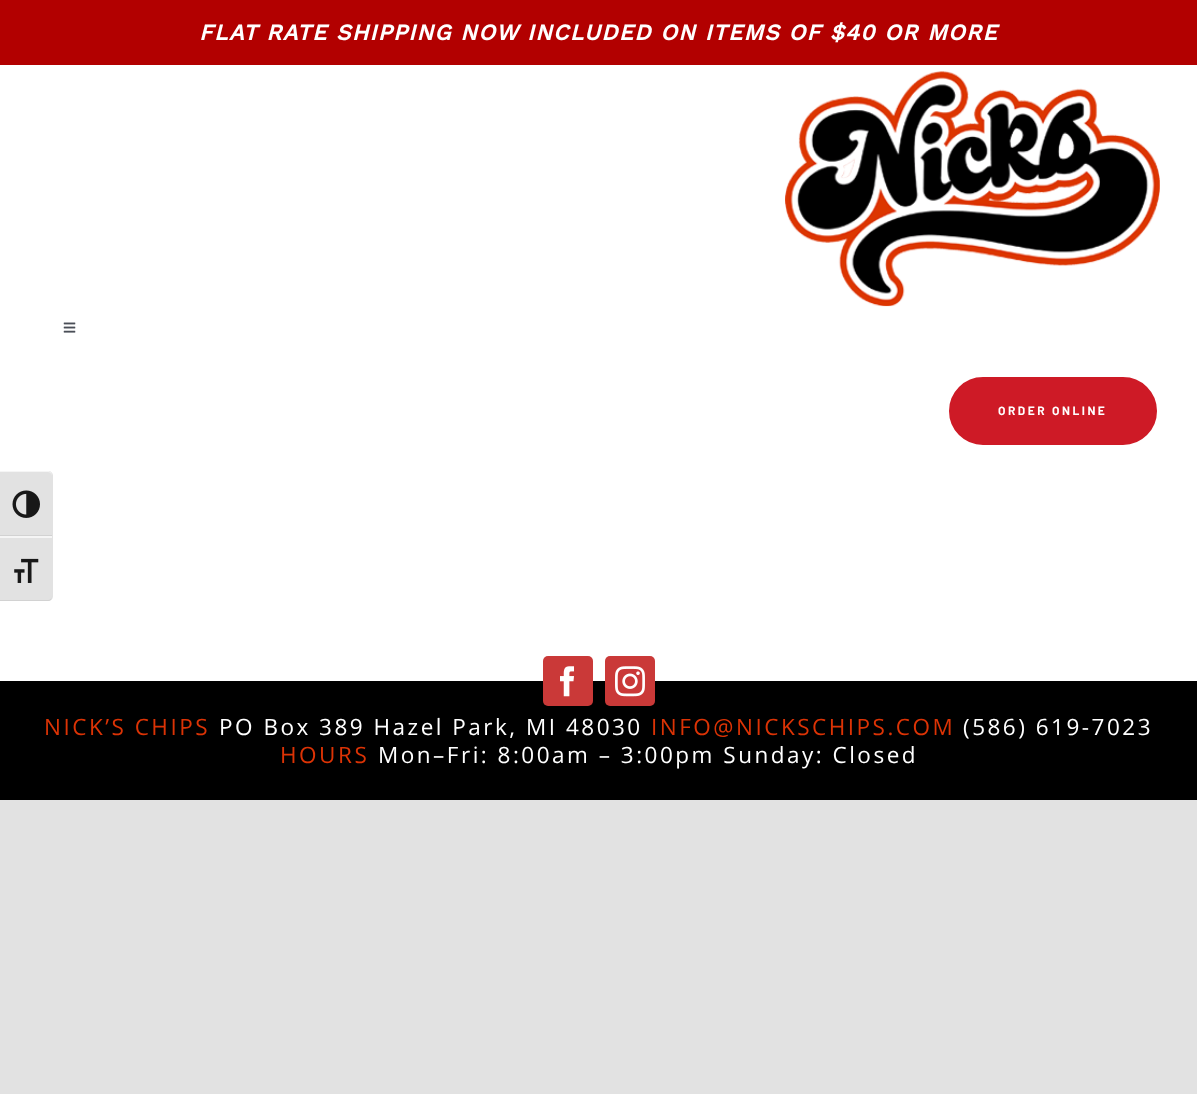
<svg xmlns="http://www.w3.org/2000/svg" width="1197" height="1094">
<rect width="100%" height="100%" fill="#e2e2e2"/>
<rect y="65" width="1197" height="616" fill="#fff"/>
<path d="M0 471h48c3 0 5 2 5 5v60h-53z" fill="#e2e2e2"/>
<path d="M0 472h48c2 0 4 2 4 4c0-2-1-4-3-5h-49z" fill="#f5f5f5"/>
<rect y="535" width="52" height="1" fill="#d2d2d2"/>
<image x="12" y="490" width="28" height="28" href="media/1.png"/>
<path d="M0 536h53v60c0 3-2 5-5 5h-48z" fill="#e2e2e2"/>
<rect y="536" width="52" height="2" fill="#f5f5f5"/>
<path d="M48 601c2 0 4-2 4-5c0 2-2 4-4 4h-48v1z" fill="#d2d2d2"/>
<image x="14" y="558" width="25" height="25" href="media/2.png"/>
<rect width="1197" height="65" fill="#b20000"/>
<text x="199" y="40" style="font-family:Work Sans;font-size:22.5px;font-weight:bold;font-style:italic;letter-spacing:1.25px;fill:#fff">FLAT RATE SHIPPING NOW INCLUDED ON ITEMS OF $40 OR MORE</text>
<image x="785" y="71" width="375" height="236" href="media/3.png"/>
<image x="63" y="322" width="13" height="11" href="media/4.png"/>
<rect x="947.5" y="375.5" width="211" height="71" rx="35.5" fill="#ce1a26" stroke="#fff" stroke-width="3"/>
<text x="998" y="415" style="font-family:Barlow;font-size:12px;font-weight:bold;letter-spacing:2.5px;fill:#fff">ORDER ONLINE</text>
<rect y="681" width="1197" height="119" fill="#000"/>
<rect x="543" y="656" width="50" height="50" rx="5" fill="#ca3938"/>
<image x="560" y="666" width="14" height="31" href="media/5.png"/>
<rect x="605" y="656" width="50" height="50" rx="5" fill="#ca3938"/>
<image x="615" y="666" width="30" height="31" href="media/6.png"/>
<text x="44" y="735" style="font-family:Open Sans;font-size:22.5px;letter-spacing:2.5px;fill:#dc3305">NICK’S CHIPS</text>
<text x="219" y="735" style="font-family:Open Sans;font-size:22.5px;letter-spacing:2.5px;fill:#fff">PO Box 389 Hazel Park, MI 48030</text>
<text x="651" y="735" style="font-family:Open Sans;font-size:22.5px;letter-spacing:2.5px;fill:#dc3305">INFO@NICKSCHIPS.COM</text>
<text x="963" y="735" style="font-family:Open Sans;font-size:22.5px;letter-spacing:2.5px;fill:#fff">(586) 619-7023</text>
<text x="280" y="763" style="font-family:Open Sans;font-size:22.5px;letter-spacing:2.5px;fill:#dc3305">HOURS</text>
<text x="378" y="763" style="font-family:Open Sans;font-size:22.5px;letter-spacing:2.5px;fill:#fff">Mon–Fri: 8:00am – 3:00pm Sunday: Closed</text>
</svg>
